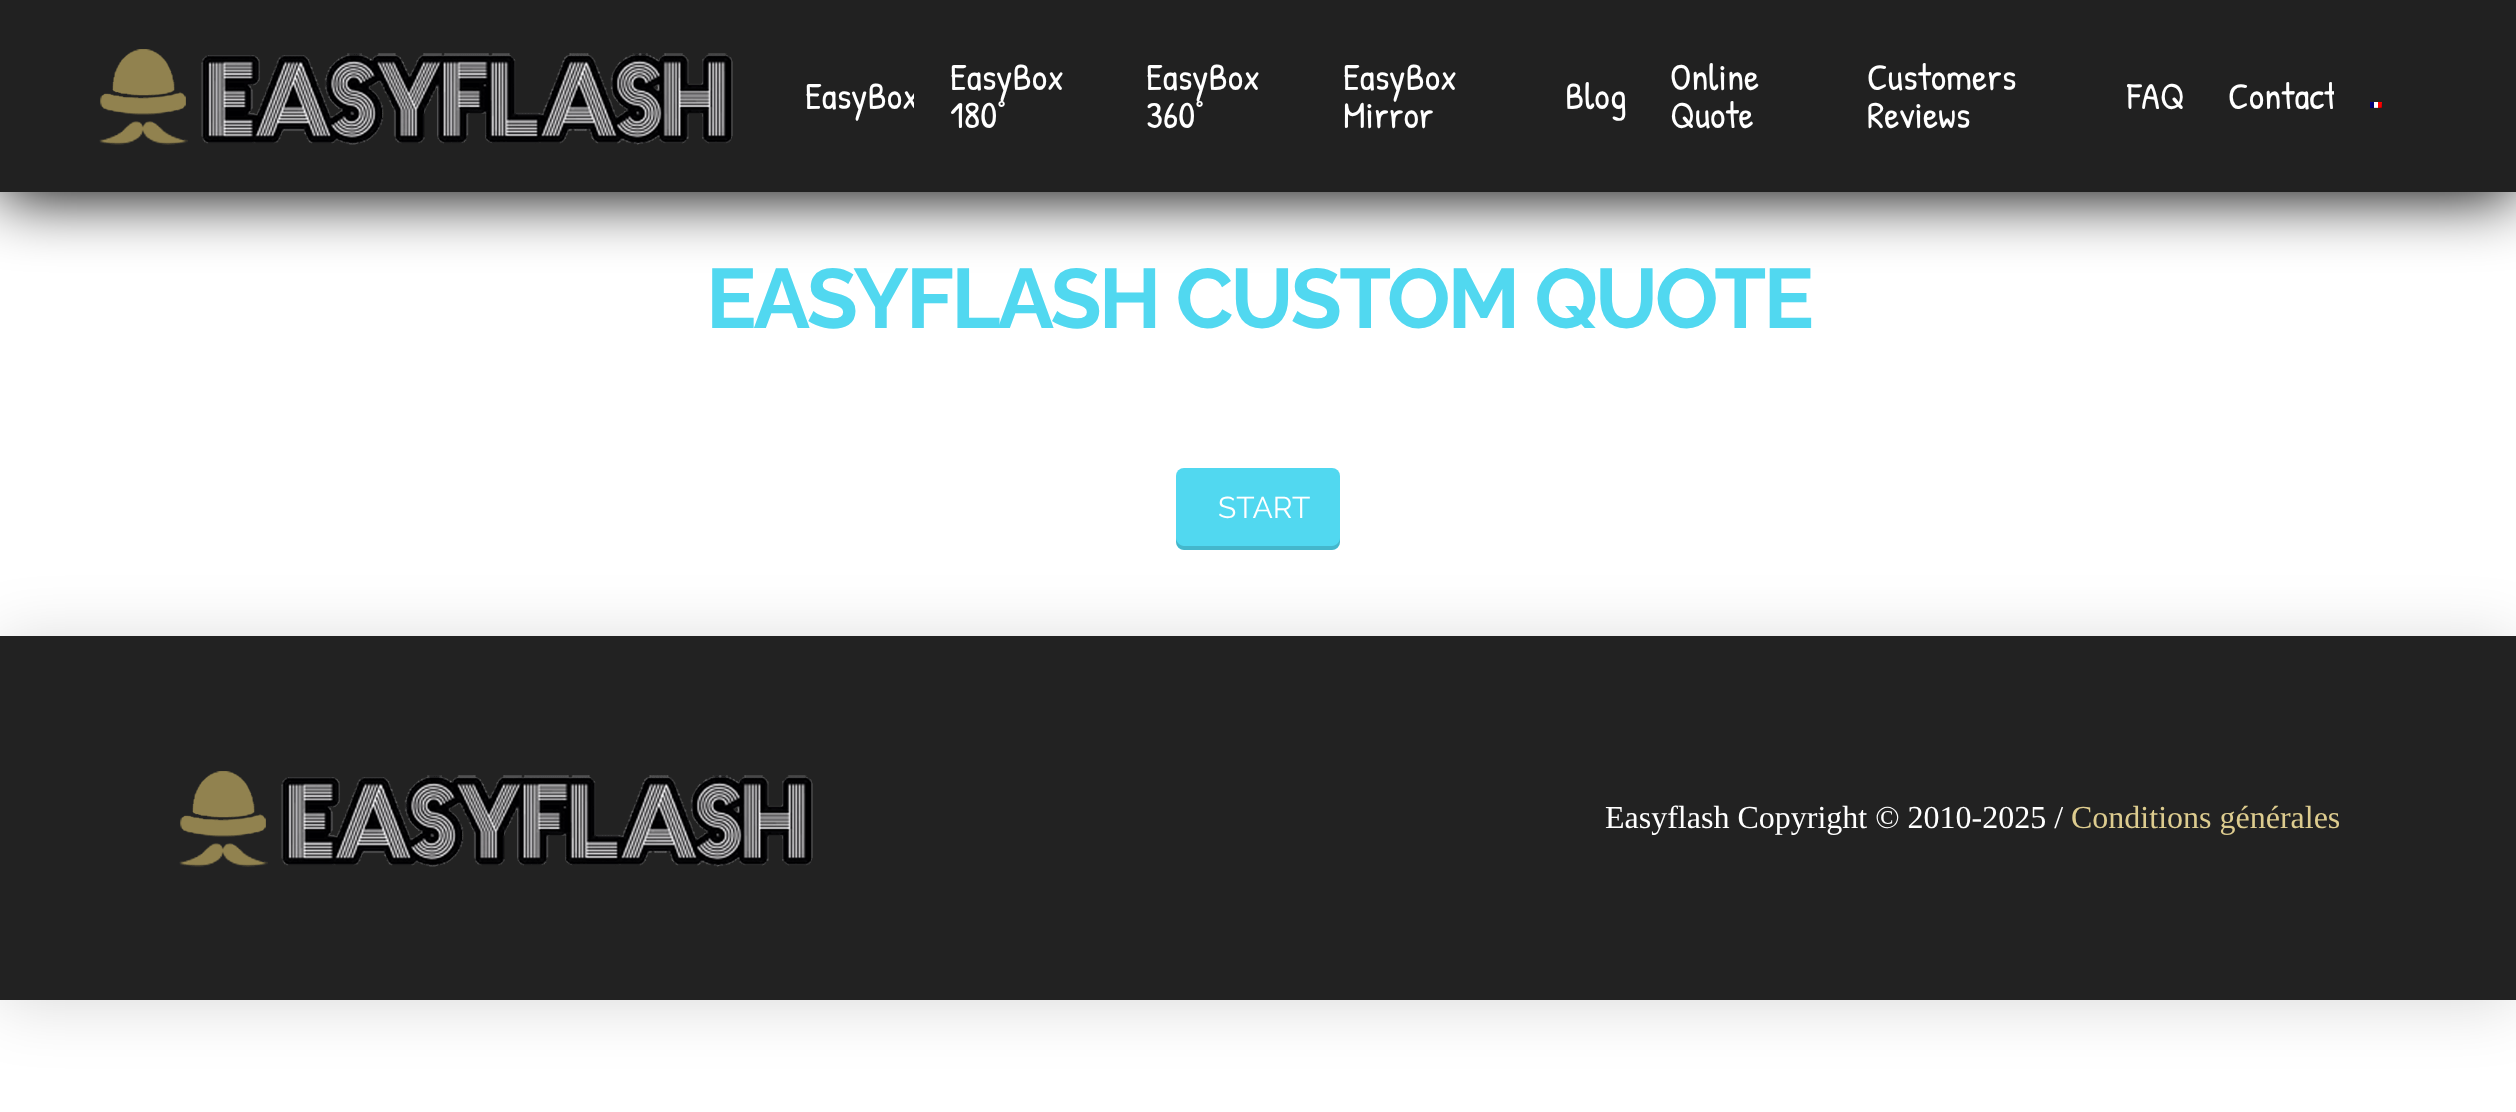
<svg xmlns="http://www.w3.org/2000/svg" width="2516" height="1112">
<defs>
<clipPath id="clip1"><rect x="768" y="26" width="146" height="140"/></clipPath>
<clipPath id="clip2"><rect x="2192" y="26" width="142" height="140"/></clipPath>
</defs>
<rect width="100%" height="100%" fill="#fff"/>
<rect y="4" width="2516" height="192" fill="#000" filter="blur(32px)"/>
<rect width="2516" height="192" fill="#212121"/>
<image x="99" y="49" width="634" height="96" href="media/1.png"/>
<g clip-path="url(#clip1)">
<text x="805" y="109" style="font-family:Patrick Hand;font-size:38px;fill:#fff">EasyBox</text>
</g>
<text x="950" y="90" style="font-family:Patrick Hand;font-size:38px;fill:#fff">EasyBox</text>
<text x="950" y="128" style="font-family:Patrick Hand;font-size:38px;fill:#fff">180°</text>
<text x="1146" y="90" style="font-family:Patrick Hand;font-size:38px;fill:#fff">EasyBox</text>
<text x="1146" y="128" style="font-family:Patrick Hand;font-size:38px;fill:#fff">360°</text>
<text x="1343" y="90" style="font-family:Patrick Hand;font-size:38px;fill:#fff">EasyBox</text>
<text x="1343" y="128" style="font-family:Patrick Hand;font-size:38px;fill:#fff">Mirror</text>
<text x="1565" y="109" style="font-family:Patrick Hand;font-size:38px;fill:#fff">Blog</text>
<text x="1670" y="90" style="font-family:Patrick Hand;font-size:38px;fill:#fff">Online</text>
<text x="1670" y="128" style="font-family:Patrick Hand;font-size:38px;fill:#fff">Quote</text>
<text x="1867" y="90" style="font-family:Patrick Hand;font-size:38px;fill:#fff">Customers</text>
<text x="1867" y="128" style="font-family:Patrick Hand;font-size:38px;fill:#fff">Reviews</text>
<text x="2127" y="109" style="font-family:Patrick Hand;font-size:38px;fill:#fff">FAQ</text>
<g clip-path="url(#clip2)">
<text x="2228" y="109" style="font-family:Patrick Hand;font-size:38px;fill:#fff">Contact</text>
</g>
<image x="2370" y="102" width="12" height="6" href="media/2.png"/>
<text x="706" y="328" style="font-family:Raleway;font-size:84px;font-weight:bold;letter-spacing:-2.9px;fill:#51d8f0">EASYFLASH CUSTOM QUOTE</text>
<rect x="1176" y="468" width="164" height="82" rx="8" fill="#51d8f0"/>
<path d="M1176 538v4c0 4 4 8 8 8h148c4 0 8-4 8-8v-4c0 4-4 8-8 8h-148c-4 0-8-4-8-8z" fill="#00000026"/>
<text x="1218" y="518" style="font-family:Raleway;font-size:30px;fill:#fff">START</text>
<rect y="640" width="2516" height="364" fill="#00000026" filter="blur(32px)"/>
<rect y="636" width="2516" height="364" fill="#222"/>
<image x="179" y="771" width="634" height="96" href="media/3.png"/>
<text x="1605" y="828" style="font-family:Liberation Serif;font-size:32px;fill:#fff">Easyflash Copyright © 2010-2025 /</text>
<text x="2071" y="828" style="font-family:Liberation Serif;font-size:32px;fill:#ddcc8f">Conditions générales</text>
</svg>
